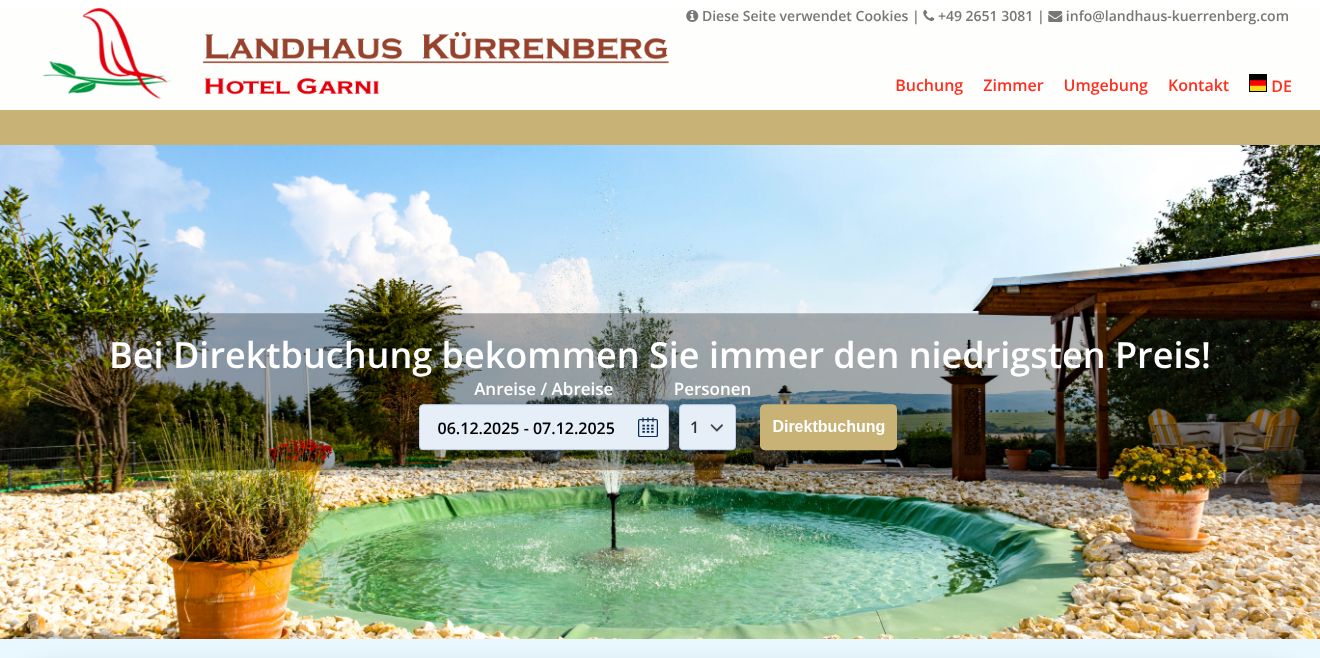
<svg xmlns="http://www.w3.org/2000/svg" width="1320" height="658">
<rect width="100%" height="100%" fill="#fff"/>
<image x="0" y="7" width="1320" height="651" href="media/1.png"/>
</svg>
